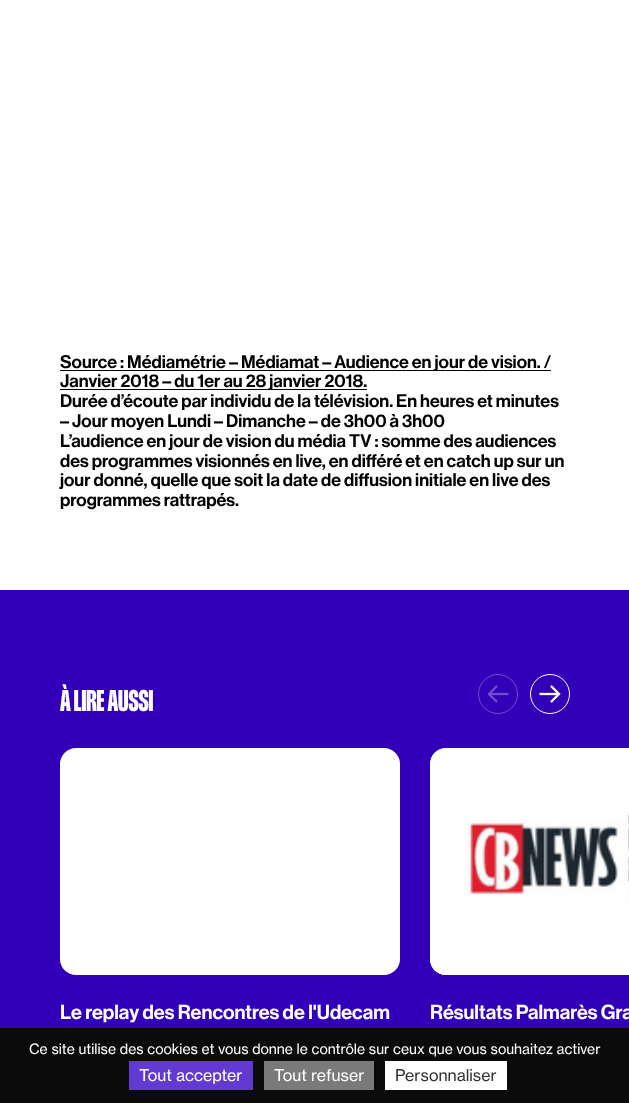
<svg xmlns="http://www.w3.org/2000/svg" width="629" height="1103">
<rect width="100%" height="100%" fill="#fff"/>
<rect x="60" y="370" width="491" height="1" fill="#000"/>
<text x="60" y="368" style="font-family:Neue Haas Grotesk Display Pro;font-size:18px;font-weight:500;fill:#000">Source : Médiamétrie – Médiamat – Audience en jour de vision. /</text>
<rect x="60" y="389" width="307" height="1" fill="#000"/>
<text x="60" y="387" style="font-family:Neue Haas Grotesk Display Pro;font-size:18px;font-weight:500;fill:#000">Janvier 2018 – du 1er au 28 janvier 2018.</text>
<text x="60" y="407" style="font-family:Neue Haas Grotesk Display Pro;font-size:18px;font-weight:500;fill:#000">Durée d’écoute par individu de la télévision. En heures et minutes</text>
<text x="60" y="427" style="font-family:Neue Haas Grotesk Display Pro;font-size:18px;font-weight:500;fill:#000">– Jour moyen Lundi – Dimanche – de 3h00 à 3h00</text>
<text x="60" y="447" style="font-family:Neue Haas Grotesk Display Pro;font-size:18px;font-weight:500;fill:#000">L’audience en jour de vision du média TV : somme des audiences</text>
<text x="60" y="467" style="font-family:Neue Haas Grotesk Display Pro;font-size:18px;font-weight:500;fill:#000">des programmes visionnés en live, en différé et en catch up sur un</text>
<text x="60" y="486" style="font-family:Neue Haas Grotesk Display Pro;font-size:18px;font-weight:500;fill:#000">jour donné, quelle que soit la date de diffusion initiale en live des</text>
<text x="60" y="506" style="font-family:Neue Haas Grotesk Display Pro;font-size:18px;font-weight:500;fill:#000">programmes rattrapés.</text>
<rect y="590" width="629" height="438" fill="#3200b9"/>
<text x="60" y="711" style="font-family:Lemon;font-size:30px;font-weight:bold;fill:#fff">À LIRE AUSSI</text>
<circle cx="498" cy="694" r="19.5" fill="none" stroke="#704dce"/>
<image x="487" y="685" width="22" height="18" href="media/1.png"/>
<circle cx="550" cy="694" r="19.5" fill="none" stroke="#fff"/>
<image x="539" y="685" width="22" height="18" href="media/2.png"/>
<rect x="60" y="748" width="340" height="227" rx="16" fill="#fff"/>
<text x="60" y="1019" style="font-family:Neue Haas Grotesk Display Pro;font-size:20px;font-weight:500;fill:#fff">Le replay des Rencontres de l'Udecam</text>
<path d="M446 748h183v227h-183c-9 0-16-7-16-16v-195c0-9 7-16 16-16z" fill="#fff"/>
<image x="430" y="748" width="199" height="227" href="media/3.png"/>
<text x="430" y="1019" style="font-family:Neue Haas Grotesk Display Pro;font-size:20px;font-weight:500;fill:#fff">Résultats Palmarès Gra</text>
<rect y="1028" width="629" height="75" fill="#0b0b0b"/>
<text x="29" y="1054" style="font-family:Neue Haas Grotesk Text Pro;font-size:14px;fill:#fff">Ce site utilise des cookies et vous donne le contrôle sur ceux que vous souhaitez activer</text>
<rect x="129" y="1061" width="124" height="29" fill="#623ad1"/>
<text x="139" y="1081" style="font-family:Neue Haas Grotesk Text Pro;font-size:16px;fill:#fff">Tout accepter</text>
<rect x="264" y="1061" width="110" height="29" fill="#7a7a7a"/>
<text x="274" y="1081" style="font-family:Neue Haas Grotesk Text Pro;font-size:16px;fill:#fff">Tout refuser</text>
<rect x="385" y="1061" width="122" height="29" fill="#fff"/>
<text x="395" y="1081" style="font-family:Neue Haas Grotesk Text Pro;font-size:16px;fill:#333">Personnaliser</text>
</svg>
